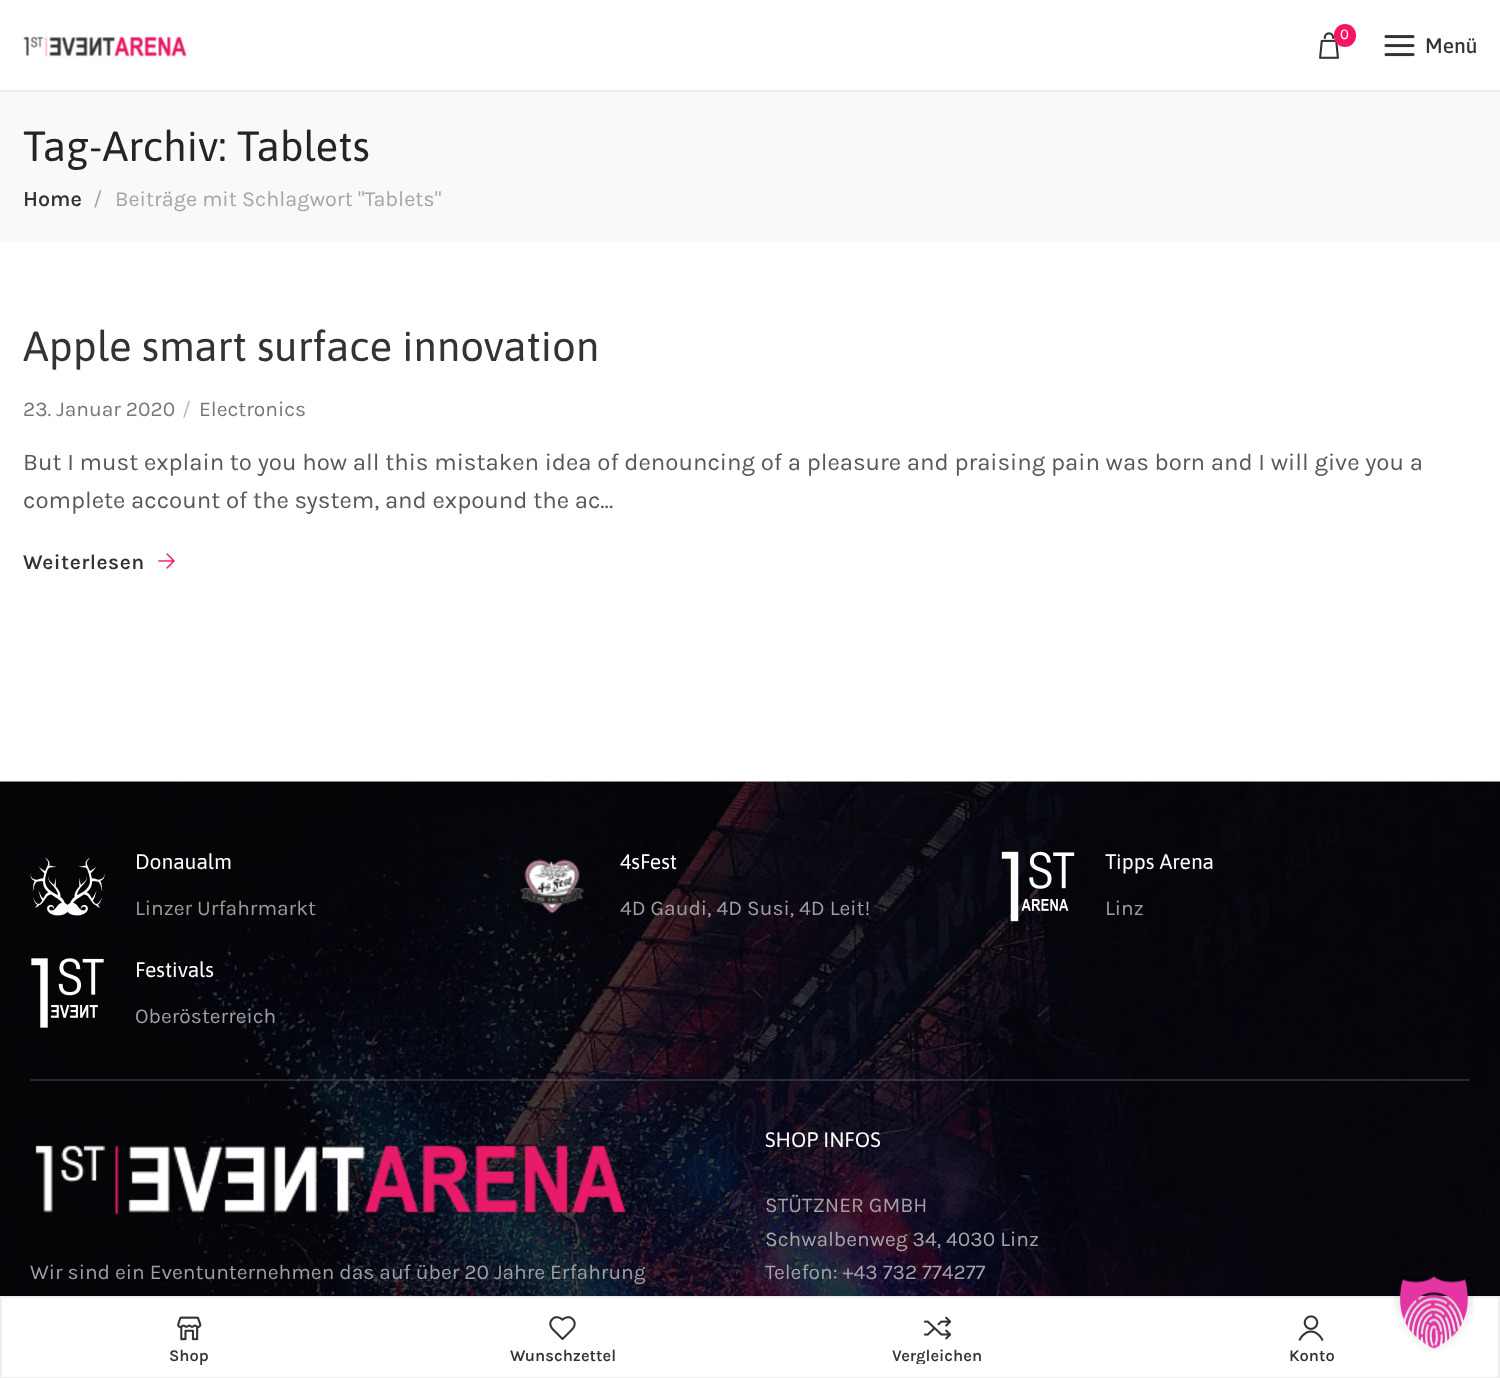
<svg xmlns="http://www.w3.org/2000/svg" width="1500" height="1378">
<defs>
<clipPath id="clip1"><rect x="765" y="1347" width="345" height="17"/></clipPath>
</defs>
<rect width="100%" height="100%" fill="#fff"/>
<rect y="90" width="1500" height="2" fill="#ededed"/>
<image x="23" y="36" width="164" height="21" href="media/1.png"/>
<image x="1319" y="32" width="20" height="27" href="media/2.png"/>
<rect x="1334" y="24" width="22" height="23" rx="11" fill="#f61565"/>
<text x="1340" y="39" style="font-family:Karla;font-size:15px;fill:#fff">0</text>
<image x="1384" y="35" width="31" height="22" href="media/3.png"/>
<text x="1425" y="53" style="font-family:Asap;font-size:21px;font-weight:500;fill:#333">Menü</text>
<rect y="92" width="1500" height="151" fill="#f9f9f9"/>
<text x="23" y="161" style="font-family:Asap;font-size:42px;fill:#242424">Tag-Archiv: Tablets</text>
<text x="23" y="206" style="font-family:Karla;font-size:21.6px;font-weight:600;fill:#333">Home</text>
<text x="93" y="206" style="font-family:Karla;font-size:21.6px;fill:#a5a5a5">/</text>
<text x="115" y="206" style="font-family:Karla;font-size:21.6px;fill:#a5a5a5">Beiträge mit Schlagwort "Tablets"</text>
<text x="23" y="361" style="font-family:Asap;font-size:42px;fill:#333">Apple smart surface innovation</text>
<text x="23" y="416" style="font-family:Karla;font-size:21px;fill:#777">23. Januar 2020</text>
<text x="182" y="416" style="font-family:Karla;font-size:21px;fill:#bbb">/</text>
<text x="199" y="416" style="font-family:Karla;font-size:21px;fill:#777">Electronics</text>
<text x="23" y="470" style="font-family:Karla;font-size:24px;fill:#585858">But I must explain to you how all this mistaken idea of denouncing of a pleasure and praising pain was born and I will give you a</text>
<text x="23" y="508" style="font-family:Karla;font-size:24px;fill:#585858">complete account of the system, and expound the ac...</text>
<text x="23" y="569" style="font-family:Karla;font-size:21px;font-weight:600;letter-spacing:0.5px;fill:#333">Weiterlesen</text>
<image x="158" y="553" width="17" height="16" href="media/4.png"/>
<image x="0" y="781" width="1500" height="515" href="media/5.png"/>
<rect x="30" y="1079" width="1440" height="2" fill="#80868e47"/>
<image x="30" y="857" width="75" height="59" href="media/6.png"/>
<text x="135" y="869" style="font-family:Asap;font-size:21px;fill:#fff">Donaualm</text>
<text x="135" y="915" style="font-family:Karla;font-size:21px;fill:#9b9b9c">Linzer Urfahrmarkt</text>
<image x="520" y="859" width="64" height="55" href="media/7.png"/>
<text x="620" y="869" style="font-family:Asap;font-size:21px;fill:#fff">4sFest</text>
<text x="620" y="915" style="font-family:Karla;font-size:21px;fill:#9e9fa3">4D Gaudi, 4D Susi, 4D Leit!</text>
<image x="1001" y="851" width="74" height="71" href="media/8.png"/>
<text x="1105" y="869" style="font-family:Asap;font-size:21px;fill:#fff">Tipps Arena</text>
<text x="1105" y="915" style="font-family:Karla;font-size:21px;fill:#9e9fa3">Linz</text>
<image x="31" y="958" width="73" height="70" href="media/9.png"/>
<text x="135" y="977" style="font-family:Asap;font-size:21px;fill:#fff">Festivals</text>
<text x="135" y="1023" style="font-family:Karla;font-size:21px;fill:#9e9fa3">Oberösterreich</text>
<image x="35" y="1145" width="591" height="71" href="media/10.png"/>
<text x="30" y="1279" style="font-family:Karla;font-size:21px;fill:#9e9fa3">Wir sind ein Eventunternehmen das auf über 20 Jahre Erfahrung</text>
<text x="765" y="1147" style="font-family:Asap;font-size:21px;fill:#fff">SHOP INFOS</text>
<text x="765" y="1212" style="font-family:Karla;font-size:21px;fill:#a79fa8">STÜTZNER GMBH</text>
<text x="765" y="1246" style="font-family:Karla;font-size:21px;fill:#a5a5a5">Schwalbenweg 34, 4030 Linz</text>
<text x="765" y="1279" style="font-family:Karla;font-size:21px;fill:#a79fa8">Telefon: +43 732 774277</text>
<rect x="1" y="1297" width="1498" height="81" fill="none" stroke="#efefef" stroke-width="2"/>
<image x="1393" y="1276" width="81" height="76" href="media/11.png"/>
<image x="177" y="1316" width="25" height="25" href="media/12.png"/>
<text x="169" y="1361" style="font-family:Karla;font-size:16.5px;font-weight:600;fill:#333">Shop</text>
<image x="549" y="1316" width="27" height="24" href="media/13.png"/>
<text x="510" y="1361" style="font-family:Karla;font-size:16.5px;font-weight:600;fill:#333">Wunschzettel</text>
<image x="923" y="1316" width="29" height="24" href="media/14.png"/>
<g clip-path="url(#clip1)">
<text x="892" y="1361" style="font-family:Karla;font-size:16.5px;font-weight:600;fill:#333">Vergleichen</text>
</g>
<image x="1298" y="1315" width="26" height="26" href="media/15.png"/>
<text x="1289" y="1361" style="font-family:Karla;font-size:16.5px;font-weight:600;fill:#333">Konto</text>
</svg>
